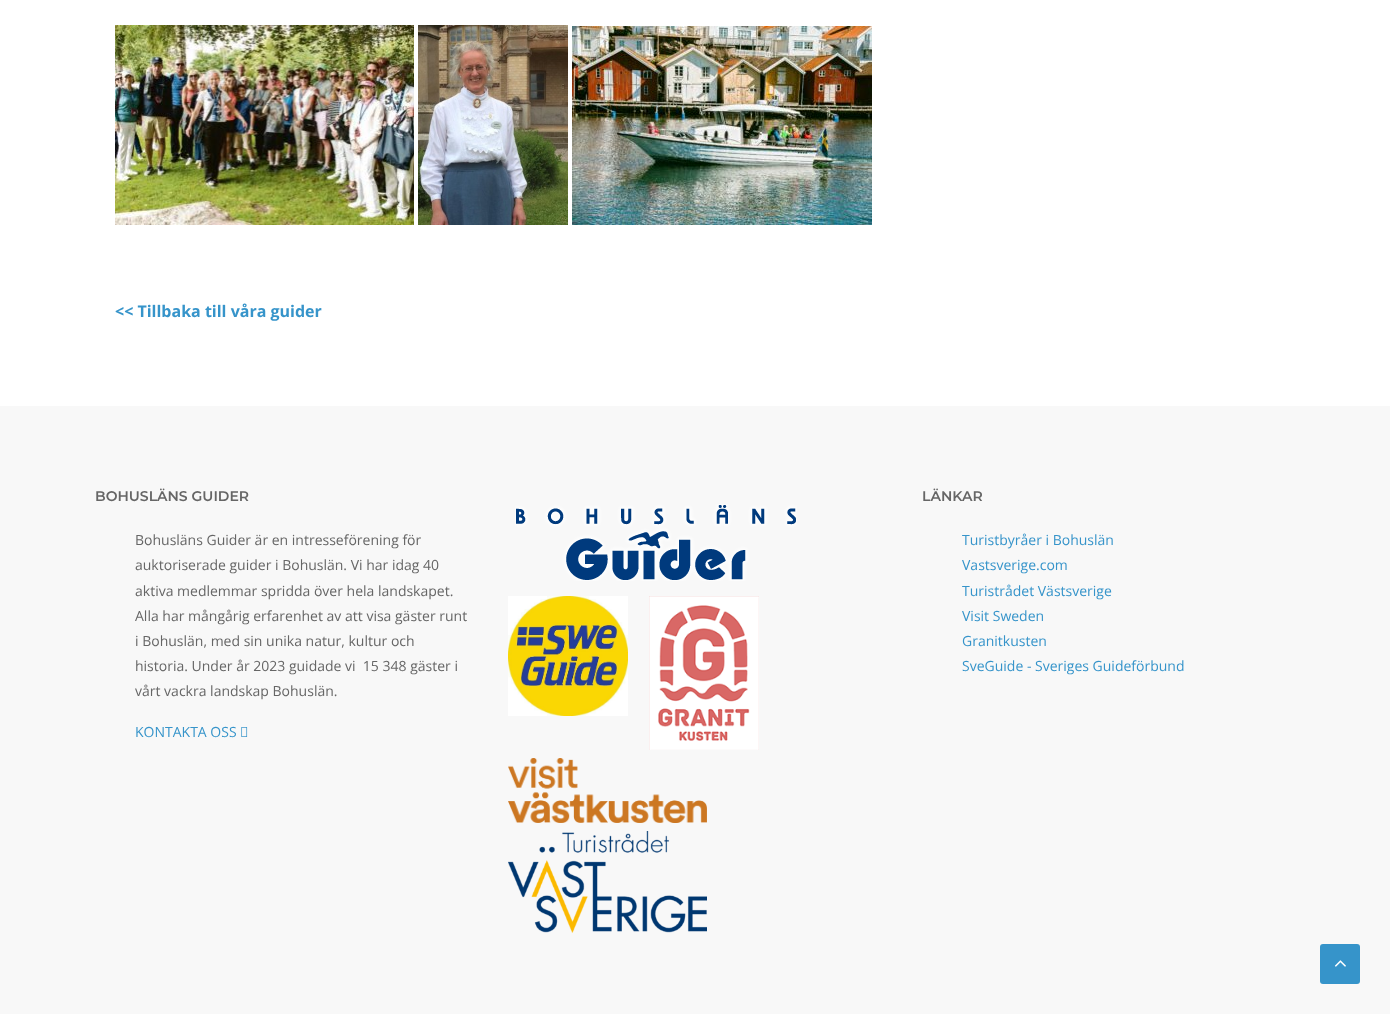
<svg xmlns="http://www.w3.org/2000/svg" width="1390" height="1014">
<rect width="100%" height="100%" fill="#fff"/>
<image x="115" y="25" width="299" height="200" href="media/1.png"/>
<image x="418" y="25" width="150" height="200" href="media/2.png"/>
<image x="572" y="26" width="300" height="199" href="media/3.png"/>
<text x="115" y="317" style="font-family:Open Sans;font-size:16px;font-weight:bold;fill:#3694ca">&lt;&lt; Tillbaka till våra guider</text>
<rect y="406" width="1390" height="608" fill="#f8f8f8"/>
<text x="95" y="501" style="font-family:Montserrat;font-size:14px;font-weight:600;fill:#666">BOHUSLÄNS GUIDER</text>
<text x="135" y="545" style="font-family:Open Sans;font-size:14px;fill:#666">Bohusläns Guider är en intresseförening för</text>
<text x="135" y="570" style="font-family:Open Sans;font-size:14px;fill:#666">auktoriserade guider i Bohuslän. Vi har idag 40</text>
<text x="135" y="596" style="font-family:Open Sans;font-size:14px;fill:#666">aktiva medlemmar spridda över hela landskapet.</text>
<text x="135" y="621" style="font-family:Open Sans;font-size:14px;fill:#666">Alla har mångårig erfarenhet av att visa gäster runt</text>
<text x="135" y="646" style="font-family:Open Sans;font-size:14px;fill:#666">i Bohuslän, med sin unika natur, kultur och</text>
<text x="135" y="671" style="font-family:Open Sans;font-size:14px;fill:#666" xml:space="preserve">historia. Under år 2023 guidade vi  15 348 gäster i</text>
<text x="135" y="696" style="font-family:Open Sans;font-size:14px;fill:#666">vårt vackra landskap Bohuslän.</text>
<text x="135" y="737" style="font-family:Open Sans;font-size:14px;fill:#3694ca">KONTAKTA OSS</text>
<image x="241" y="727" width="7" height="10" href="media/4.png"/>
<image x="515" y="504" width="282" height="77" href="media/5.png"/>
<image x="508" y="596" width="120" height="120" href="media/6.png"/>
<image x="649" y="596" width="110" height="154" href="media/7.png"/>
<image x="508" y="758" width="199" height="65" href="media/8.png"/>
<image x="508" y="831" width="199" height="102" href="media/9.png"/>
<text x="922" y="501" style="font-family:Montserrat;font-size:14px;font-weight:600;fill:#666">LÄNKAR</text>
<text x="962" y="545" style="font-family:Open Sans;font-size:14px;fill:#3694ca">Turistbyråer i Bohuslän</text>
<text x="962" y="570" style="font-family:Open Sans;font-size:14px;fill:#3694ca">Vastsverige.com</text>
<text x="962" y="596" style="font-family:Open Sans;font-size:14px;fill:#3694ca">Turistrådet Västsverige</text>
<text x="962" y="621" style="font-family:Open Sans;font-size:14px;fill:#3694ca">Visit Sweden</text>
<text x="962" y="646" style="font-family:Open Sans;font-size:14px;fill:#3694ca">Granitkusten</text>
<text x="962" y="671" style="font-family:Open Sans;font-size:14px;fill:#3694ca">SveGuide - Sveriges Guideförbund</text>
<rect x="1320" y="944" width="40" height="40" rx="3" fill="#3694ca"/>
<image x="1334" y="960" width="12" height="7" href="media/10.png"/>
</svg>
